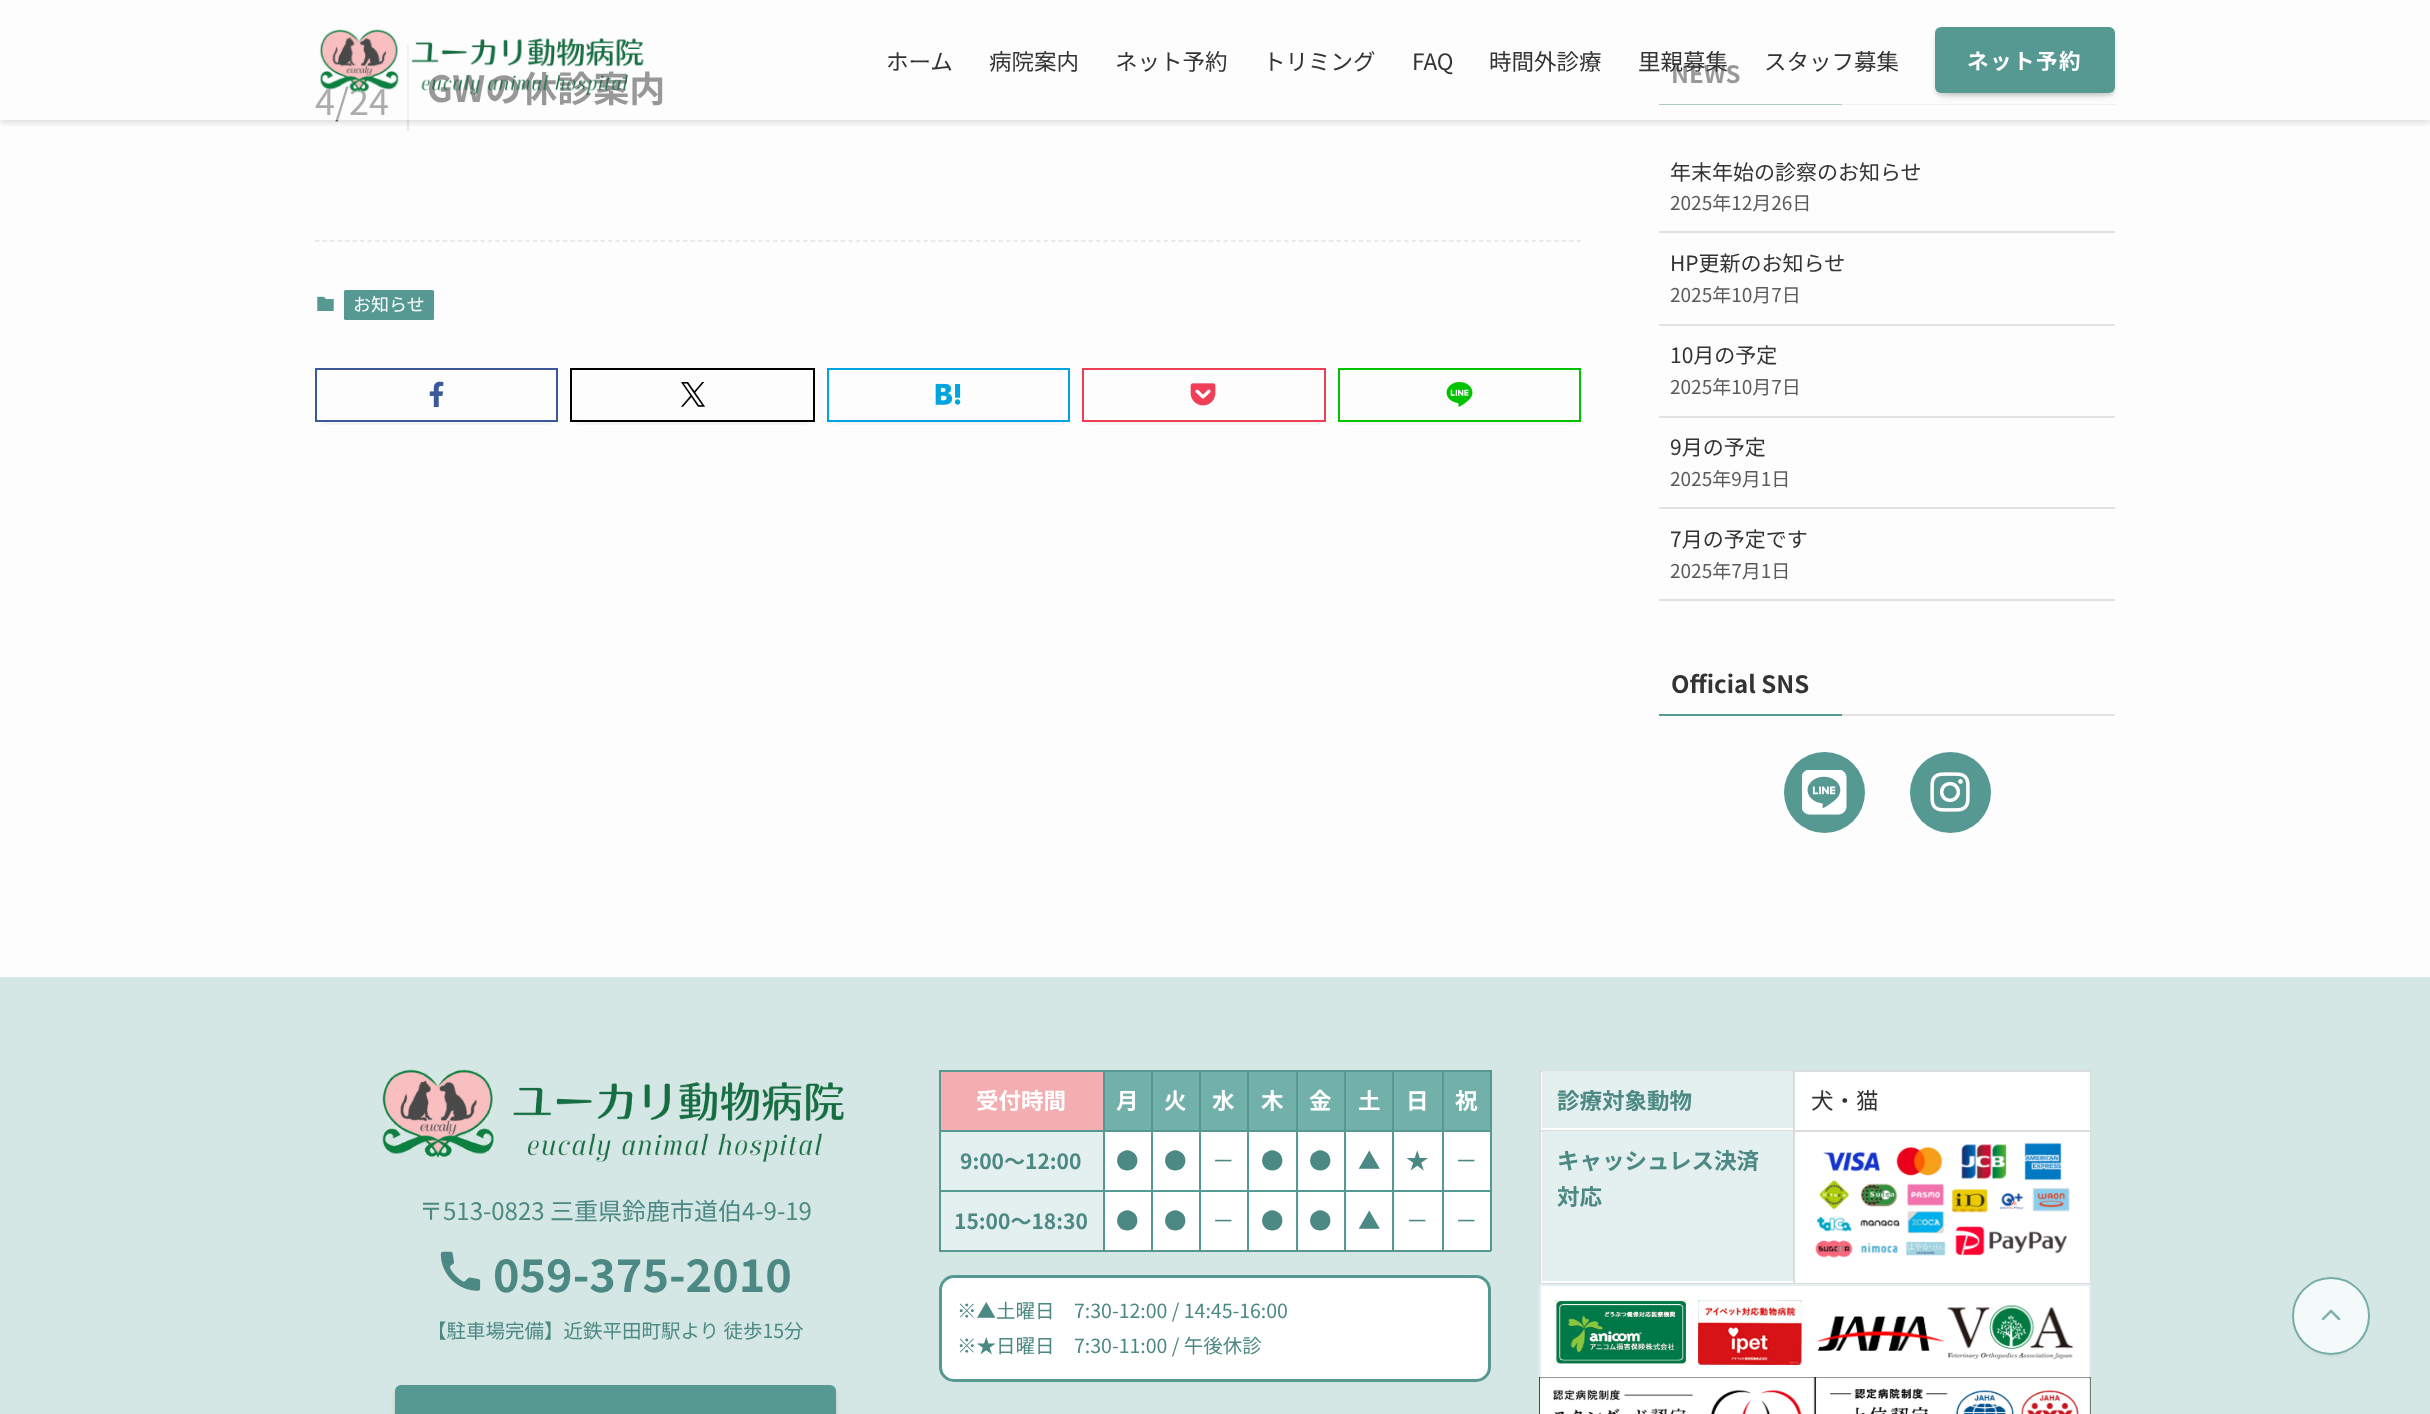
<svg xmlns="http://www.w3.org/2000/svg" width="2430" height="1414">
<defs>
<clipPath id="clip1"><rect x="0" y="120" width="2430" height="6"/></clipPath>
<clipPath id="clip2"><rect x="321" y="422" width="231" height="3"/></clipPath>
<clipPath id="clip3"><rect x="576" y="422" width="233" height="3"/></clipPath>
<clipPath id="clip4"><rect x="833" y="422" width="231" height="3"/></clipPath>
<clipPath id="clip5"><rect x="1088" y="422" width="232" height="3"/></clipPath>
<clipPath id="clip6"><rect x="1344" y="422" width="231" height="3"/></clipPath>
</defs>
<rect width="100%" height="100%" fill="#fdfdfd"/>
<rect x="407" y="44" width="2" height="87" fill="#e8e8e8"/>
<rect x="1659" y="104" width="183" height="1" fill="#569993"/>
<rect x="1842" y="104" width="273" height="1" fill="#e2e2e2"/>
<g clip-path="url(#clip1)">
<rect y="3" width="2430" height="120" fill="#0000001f" filter="blur(3px)"/>
</g>
<text x="315" y="115" style="font-family:Noto Sans JP;font-size:36px;fill:#5b5b5b">4/24</text>
<text x="427" y="102" style="font-family:Noto Sans JP;font-size:36px;font-weight:bold;fill:#333">GWの休診案内</text>
<text x="1671" y="83" style="font-family:Noto Sans JP;font-size:24px;font-weight:bold;fill:#333">NEWS</text>
<rect x="315" y="44" width="1800" height="76" fill="#fdfdfd80"/>
<image x="319" y="29" width="325" height="67" href="media/1.png"/>
<text x="886" y="70" style="font-family:Noto Sans JP;font-size:22.5px;fill:#333">ホーム</text>
<text x="989" y="70" style="font-family:Noto Sans JP;font-size:22.5px;fill:#333">病院案内</text>
<text x="1115" y="70" style="font-family:Noto Sans JP;font-size:22.5px;fill:#333">ネット予約</text>
<text x="1263" y="70" style="font-family:Noto Sans JP;font-size:22.5px;fill:#333">トリミング</text>
<text x="1412" y="70" style="font-family:Noto Sans JP;font-size:22.5px;fill:#333">FAQ</text>
<text x="1489" y="70" style="font-family:Noto Sans JP;font-size:22.5px;fill:#333">時間外診療</text>
<text x="1638" y="70" style="font-family:Noto Sans JP;font-size:22.5px;fill:#333">里親募集</text>
<text x="1764" y="70" style="font-family:Noto Sans JP;font-size:22.5px;fill:#333">スタッフ募集</text>
<rect x="1941" y="39" width="168" height="54" fill="#00000033" filter="blur(6px)"/>
<rect x="1935" y="30" width="180" height="66" rx="6" fill="#0000001a" filter="blur(1.5px)"/>
<rect x="1935" y="27" width="180" height="66" rx="6" fill="#569993"/>
<text x="1967" y="69" style="font-family:Noto Sans JP;font-size:21.5px;font-weight:bold;letter-spacing:1.5px;fill:#fff">ネット予約</text>
<path d="M315 241h1266" fill="none" stroke="#e2e2e2" stroke-width="1.5" stroke-dasharray="4.5 3.01"/>
<image x="317" y="296" width="17" height="15" href="media/2.png"/>
<rect x="344" y="290" width="90" height="30" rx="1.5" fill="#569993"/>
<text x="353" y="311" style="font-family:Noto Sans JP;font-size:18px;fill:#fff">お知らせ</text>
<g clip-path="url(#clip2)">
<rect x="321" y="380" width="231" height="42" fill="#0000001a" filter="blur(3px)"/>
</g>
<rect x="316" y="369" width="241" height="52" fill="none" stroke="#3b5998" stroke-width="2"/>
<image x="429" y="381" width="15" height="26" href="media/3.png"/>
<g clip-path="url(#clip3)">
<rect x="576" y="380" width="233" height="42" fill="#0000001a" filter="blur(3px)"/>
</g>
<rect x="571" y="369" width="243" height="52" fill="none" stroke="#000" stroke-width="2"/>
<image x="681" y="382" width="24" height="25" href="media/4.png"/>
<g clip-path="url(#clip4)">
<rect x="833" y="380" width="231" height="42" fill="#0000001a" filter="blur(3px)"/>
</g>
<rect x="828" y="369" width="241" height="52" fill="none" stroke="#00a4de" stroke-width="2"/>
<image x="935" y="383" width="26" height="22" href="media/5.png"/>
<g clip-path="url(#clip5)">
<rect x="1088" y="380" width="232" height="42" fill="#0000001a" filter="blur(3px)"/>
</g>
<rect x="1083" y="369" width="242" height="52" fill="none" stroke="#ef3f56" stroke-width="2"/>
<image x="1190" y="383" width="26" height="23" href="media/6.png"/>
<g clip-path="url(#clip6)">
<rect x="1344" y="380" width="231" height="42" fill="#0000001a" filter="blur(3px)"/>
</g>
<rect x="1339" y="369" width="241" height="52" fill="none" stroke="#00c300" stroke-width="2"/>
<image x="1446" y="382" width="27" height="25" href="media/7.png"/>
<rect x="1659" y="231" width="456" height="2" fill="#e2e2e2"/>
<text x="1670" y="180" style="font-family:Noto Sans JP;font-size:21px;fill:#333">年末年始の診察のお知らせ</text>
<text x="1670" y="210" style="font-family:Noto Sans JP;font-size:19px;fill:#5b5b5b">2025年12月26日</text>
<rect x="1659" y="324" width="456" height="2" fill="#e2e2e2"/>
<text x="1670" y="271" style="font-family:Noto Sans JP;font-size:21px;fill:#333">HP更新のお知らせ</text>
<text x="1670" y="302" style="font-family:Noto Sans JP;font-size:19px;fill:#5b5b5b">2025年10月7日</text>
<rect x="1659" y="416" width="456" height="2" fill="#e2e2e2"/>
<text x="1670" y="363" style="font-family:Noto Sans JP;font-size:21px;fill:#333">10月の予定</text>
<text x="1670" y="394" style="font-family:Noto Sans JP;font-size:19px;fill:#5b5b5b">2025年10月7日</text>
<rect x="1659" y="507" width="456" height="2" fill="#e2e2e2"/>
<text x="1670" y="455" style="font-family:Noto Sans JP;font-size:21px;fill:#333">9月の予定</text>
<text x="1670" y="486" style="font-family:Noto Sans JP;font-size:19px;fill:#5b5b5b">2025年9月1日</text>
<rect x="1659" y="599" width="456" height="2" fill="#e2e2e2"/>
<text x="1670" y="547" style="font-family:Noto Sans JP;font-size:21px;fill:#333">7月の予定です</text>
<text x="1670" y="578" style="font-family:Noto Sans JP;font-size:19px;fill:#5b5b5b">2025年7月1日</text>
<text x="1671" y="693" style="font-family:Noto Sans JP;font-size:24px;font-weight:bold;fill:#333">Official SNS</text>
<rect x="1659" y="714" width="183" height="2" fill="#569993"/>
<rect x="1842" y="714" width="273" height="2" fill="#e2e2e2"/>
<circle cx="1824.5" cy="792.5" r="40.5" fill="#569993"/>
<image x="1802" y="770" width="45" height="45" href="media/8.png"/>
<circle cx="1950.5" cy="792.5" r="40.5" fill="#569993"/>
<image x="1930" y="772" width="40" height="40" href="media/9.png"/>
<rect y="977" width="2430" height="437" fill="#d4e7e5"/>
<rect x="941" y="1072" width="162" height="58" fill="#f4adb0"/>
<rect x="1442" y="1070" width="49" height="2" fill="#569993"/>
<rect x="1442" y="1130" width="49" height="2" fill="#569993"/>
<rect x="1442" y="1190" width="49" height="2" fill="#569993"/>
<rect x="1490" y="1190" width="2" height="61" fill="#569993"/>
<rect x="1442" y="1250" width="49" height="2" fill="#569993"/>
<rect x="1442" y="1190" width="2" height="61" fill="#569993"/>
<rect x="1392" y="1190" width="51" height="2" fill="#569993"/>
<rect x="1442" y="1130" width="2" height="61" fill="#569993"/>
<rect x="1392" y="1130" width="51" height="2" fill="#569993"/>
<rect x="1442" y="1070" width="2" height="61" fill="#569993"/>
<rect x="1392" y="1070" width="51" height="2" fill="#569993"/>
<rect x="1392" y="1250" width="51" height="2" fill="#569993"/>
<rect x="1392" y="1190" width="2" height="61" fill="#569993"/>
<rect x="1344" y="1190" width="50" height="2" fill="#569993"/>
<rect x="1392" y="1130" width="2" height="61" fill="#569993"/>
<rect x="1344" y="1130" width="50" height="2" fill="#569993"/>
<rect x="1392" y="1070" width="2" height="61" fill="#569993"/>
<rect x="1344" y="1070" width="50" height="2" fill="#569993"/>
<rect x="1344" y="1250" width="50" height="2" fill="#569993"/>
<rect x="1344" y="1190" width="2" height="61" fill="#569993"/>
<rect x="1296" y="1190" width="50" height="2" fill="#569993"/>
<rect x="1344" y="1130" width="2" height="61" fill="#569993"/>
<rect x="1296" y="1130" width="50" height="2" fill="#569993"/>
<rect x="1344" y="1070" width="2" height="61" fill="#569993"/>
<rect x="1296" y="1070" width="50" height="2" fill="#569993"/>
<rect x="1296" y="1250" width="50" height="2" fill="#569993"/>
<rect x="1296" y="1190" width="2" height="61" fill="#569993"/>
<rect x="1247" y="1190" width="51" height="2" fill="#569993"/>
<rect x="1296" y="1130" width="2" height="61" fill="#569993"/>
<rect x="1247" y="1130" width="51" height="2" fill="#569993"/>
<rect x="1296" y="1070" width="2" height="61" fill="#569993"/>
<rect x="1247" y="1070" width="51" height="2" fill="#569993"/>
<rect x="1247" y="1250" width="51" height="2" fill="#569993"/>
<rect x="1247" y="1190" width="2" height="61" fill="#569993"/>
<rect x="1199" y="1190" width="49" height="2" fill="#569993"/>
<rect x="1247" y="1130" width="2" height="61" fill="#569993"/>
<rect x="1199" y="1130" width="49" height="2" fill="#569993"/>
<rect x="1247" y="1070" width="2" height="61" fill="#569993"/>
<rect x="1199" y="1070" width="49" height="2" fill="#569993"/>
<rect x="1199" y="1250" width="49" height="2" fill="#569993"/>
<rect x="1199" y="1190" width="2" height="61" fill="#569993"/>
<rect x="1151" y="1190" width="49" height="2" fill="#569993"/>
<rect x="1199" y="1130" width="2" height="61" fill="#569993"/>
<rect x="1151" y="1130" width="49" height="2" fill="#569993"/>
<rect x="1199" y="1070" width="2" height="61" fill="#569993"/>
<rect x="1151" y="1070" width="49" height="2" fill="#569993"/>
<rect x="1151" y="1250" width="49" height="2" fill="#569993"/>
<rect x="1151" y="1190" width="2" height="61" fill="#569993"/>
<rect x="1103" y="1190" width="49" height="2" fill="#569993"/>
<rect x="1151" y="1130" width="2" height="61" fill="#569993"/>
<rect x="1103" y="1130" width="49" height="2" fill="#569993"/>
<rect x="1151" y="1070" width="2" height="61" fill="#569993"/>
<rect x="1103" y="1070" width="49" height="2" fill="#569993"/>
<rect x="1103" y="1250" width="49" height="2" fill="#569993"/>
<rect x="1103" y="1190" width="2" height="61" fill="#569993"/>
<rect x="939" y="1190" width="165" height="2" fill="#569993"/>
<rect x="1103" y="1130" width="2" height="61" fill="#569993"/>
<rect x="939" y="1130" width="165" height="2" fill="#569993"/>
<rect x="1103" y="1070" width="2" height="61" fill="#569993"/>
<rect x="939" y="1070" width="165" height="2" fill="#569993"/>
<rect x="939" y="1250" width="165" height="2" fill="#569993"/>
<rect x="939" y="1190" width="2" height="61" fill="#569993"/>
<rect x="939" y="1130" width="2" height="61" fill="#569993"/>
<rect x="939" y="1070" width="2" height="61" fill="#569993"/>
<text x="976" y="1109" style="font-family:Noto Sans JP;font-size:22.5px;font-weight:bold;fill:#fff">受付時間</text>
<rect x="1105" y="1072" width="46" height="58" fill="#72b0aa"/>
<text x="1116" y="1109" style="font-family:Noto Sans JP;font-size:22.5px;font-weight:bold;fill:#fff">月</text>
<rect x="1153" y="1072" width="46" height="58" fill="#72b0aa"/>
<text x="1164" y="1109" style="font-family:Noto Sans JP;font-size:22.5px;font-weight:bold;fill:#fff">火</text>
<rect x="1201" y="1072" width="46" height="58" fill="#72b0aa"/>
<text x="1212" y="1109" style="font-family:Noto Sans JP;font-size:22.5px;font-weight:bold;fill:#fff">水</text>
<rect x="1249" y="1072" width="47" height="58" fill="#72b0aa"/>
<text x="1261" y="1109" style="font-family:Noto Sans JP;font-size:22.5px;font-weight:bold;fill:#fff">木</text>
<rect x="1298" y="1072" width="46" height="58" fill="#72b0aa"/>
<text x="1309" y="1109" style="font-family:Noto Sans JP;font-size:22.5px;font-weight:bold;fill:#fff">金</text>
<rect x="1346" y="1072" width="46" height="58" fill="#72b0aa"/>
<text x="1358" y="1109" style="font-family:Noto Sans JP;font-size:22.5px;font-weight:bold;fill:#fff">土</text>
<rect x="1394" y="1072" width="48" height="58" fill="#72b0aa"/>
<text x="1406" y="1109" style="font-family:Noto Sans JP;font-size:22.5px;font-weight:bold;fill:#fff">日</text>
<rect x="1444" y="1072" width="46" height="58" fill="#72b0aa"/>
<rect x="1490" y="1130" width="2" height="61" fill="#569993"/>
<rect x="1490" y="1070" width="2" height="61" fill="#569993"/>
<text x="1455" y="1109" style="font-family:Noto Sans JP;font-size:22.5px;font-weight:bold;fill:#fff">祝</text>
<rect x="941" y="1132" width="162" height="58" fill="#e4f0ef"/>
<text x="960" y="1169" style="font-family:Noto Sans JP;font-size:21px;font-weight:bold;fill:#4d8984">9:00～12:00</text>
<rect x="1105" y="1132" width="46" height="58" fill="#fff"/>
<text x="1116" y="1169" style="font-family:Noto Sans JP;font-size:22.5px;fill:#4d8984">●</text>
<rect x="1153" y="1132" width="46" height="58" fill="#fff"/>
<text x="1164" y="1169" style="font-family:Noto Sans JP;font-size:22.5px;fill:#4d8984">●</text>
<rect x="1201" y="1132" width="46" height="58" fill="#fff"/>
<text x="1212" y="1169" style="font-family:Noto Sans JP;font-size:22.5px;fill:#4d8984">－</text>
<rect x="1249" y="1132" width="47" height="58" fill="#fff"/>
<text x="1261" y="1169" style="font-family:Noto Sans JP;font-size:22.5px;fill:#4d8984">●</text>
<rect x="1298" y="1132" width="46" height="58" fill="#fff"/>
<text x="1309" y="1169" style="font-family:Noto Sans JP;font-size:22.5px;fill:#4d8984">●</text>
<rect x="1346" y="1132" width="46" height="58" fill="#fff"/>
<text x="1358" y="1169" style="font-family:Noto Sans JP;font-size:22.5px;fill:#4d8984">▲</text>
<rect x="1394" y="1132" width="48" height="58" fill="#fff"/>
<text x="1406" y="1169" style="font-family:Noto Sans JP;font-size:22.5px;fill:#4d8984">★</text>
<rect x="1444" y="1132" width="46" height="58" fill="#fff"/>
<text x="1455" y="1169" style="font-family:Noto Sans JP;font-size:22.5px;fill:#4d8984">－</text>
<rect x="941" y="1192" width="162" height="58" fill="#e4f0ef"/>
<text x="954" y="1229" style="font-family:Noto Sans JP;font-size:21px;font-weight:bold;fill:#4d8984">15:00～18:30</text>
<rect x="1105" y="1192" width="46" height="58" fill="#fff"/>
<text x="1116" y="1229" style="font-family:Noto Sans JP;font-size:22.5px;fill:#4d8984">●</text>
<rect x="1153" y="1192" width="46" height="58" fill="#fff"/>
<text x="1164" y="1229" style="font-family:Noto Sans JP;font-size:22.5px;fill:#4d8984">●</text>
<rect x="1201" y="1192" width="46" height="58" fill="#fff"/>
<text x="1212" y="1229" style="font-family:Noto Sans JP;font-size:22.5px;fill:#4d8984">－</text>
<rect x="1249" y="1192" width="47" height="58" fill="#fff"/>
<text x="1261" y="1229" style="font-family:Noto Sans JP;font-size:22.5px;fill:#4d8984">●</text>
<rect x="1298" y="1192" width="46" height="58" fill="#fff"/>
<text x="1309" y="1229" style="font-family:Noto Sans JP;font-size:22.5px;fill:#4d8984">●</text>
<rect x="1346" y="1192" width="46" height="58" fill="#fff"/>
<text x="1358" y="1229" style="font-family:Noto Sans JP;font-size:22.5px;fill:#4d8984">▲</text>
<rect x="1394" y="1192" width="48" height="58" fill="#fff"/>
<text x="1406" y="1229" style="font-family:Noto Sans JP;font-size:22.5px;fill:#4d8984">－</text>
<rect x="1444" y="1192" width="46" height="58" fill="#fff"/>
<text x="1455" y="1229" style="font-family:Noto Sans JP;font-size:22.5px;fill:#4d8984">－</text>
<rect x="940.5" y="1276.5" width="549" height="104" rx="13.5" fill="#fff" stroke="#569993" stroke-width="3"/>
<text x="957" y="1318" style="font-family:Noto Sans JP;font-size:19.5px;fill:#4d8984">※▲土曜日　7:30-12:00 / 14:45-16:00</text>
<text x="957" y="1353" style="font-family:Noto Sans JP;font-size:19.5px;fill:#4d8984">※★日曜日　7:30-11:00 / 午後休診</text>
<rect x="1541" y="1072" width="549" height="211" fill="#fff"/>
<rect x="1793" y="1070" width="298" height="2" fill="#dcdcdc"/>
<rect x="1793" y="1130" width="298" height="2" fill="#dcdcdc"/>
<rect x="2090" y="1130" width="1" height="154" fill="#dcdcdc"/>
<rect x="1793" y="1283" width="298" height="1" fill="#dcdcdc"/>
<rect x="1793" y="1130" width="2" height="154" fill="#dcdcdc"/>
<rect x="1539" y="1130" width="255" height="2" fill="#dcdcdc"/>
<rect x="1793" y="1070" width="2" height="61" fill="#dcdcdc"/>
<rect x="1539" y="1070" width="255" height="2" fill="#dcdcdc"/>
<rect x="1539" y="1283" width="255" height="1" fill="#dcdcdc"/>
<rect x="1539" y="1130" width="2" height="154" fill="#dcdcdc"/>
<rect x="1539" y="1070" width="2" height="61" fill="#dcdcdc"/>
<rect x="1542" y="1071" width="251" height="57" fill="#e4f0ef"/>
<text x="1557" y="1109" style="font-family:Noto Sans JP;font-size:22.5px;font-weight:bold;fill:#4d8984">診療対象動物</text>
<rect x="2090" y="1070" width="1" height="61" fill="#dcdcdc"/>
<text x="1811" y="1109" style="font-family:Noto Sans JP;font-size:22.5px;fill:#333">犬・猫</text>
<rect x="1542" y="1131" width="251" height="150" fill="#e4f0ef"/>
<text x="1557" y="1169" style="font-family:Noto Sans JP;font-size:22.5px;font-weight:bold;fill:#4d8984">キャッシュレス決済</text>
<text x="1557" y="1205" style="font-family:Noto Sans JP;font-size:22.5px;font-weight:bold;fill:#4d8984">対応</text>
<image x="1815" y="1142" width="255" height="116" href="media/10.png"/>
<rect x="1540" y="1285" width="550" height="96" fill="#fff" stroke="#e4f0ef" stroke-width="2"/>
<image x="1555" y="1300" width="131" height="64" href="media/11.png"/>
<image x="1698" y="1300" width="104" height="65" href="media/12.png"/>
<image x="1817" y="1316" width="128" height="35" href="media/13.png"/>
<image x="1947" y="1305" width="127" height="55" href="media/14.png"/>
<image x="1539" y="1377" width="276" height="37" href="media/15.png"/>
<image x="1815" y="1377" width="276" height="37" href="media/16.png"/>
<image x="382" y="1069" width="462" height="93" href="media/17.png"/>
<text x="419" y="1220" style="font-family:Noto Sans JP;font-size:24px;fill:#4d8984">〒513-0823 三重県鈴鹿市道伯4-9-19</text>
<image x="440" y="1251" width="41" height="40" href="media/18.png"/>
<text x="493" y="1292" style="font-family:Noto Sans JP;font-size:45px;font-weight:bold;fill:#4d8984">059-375-2010</text>
<text x="427" y="1338" style="font-family:Noto Sans JP;font-size:19.5px;fill:#4d8984">【駐車場完備】近鉄平田町駅より 徒歩15分</text>
<rect x="401" y="1397" width="429" height="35" fill="#00000033" filter="blur(6px)"/>
<rect x="395" y="1388" width="441" height="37" rx="6" fill="#0000001a" filter="blur(1.5px)"/>
<rect x="395" y="1385" width="441" height="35" rx="6" fill="#569993"/>
<rect x="2298" y="1289" width="66" height="66" rx="33" fill="#353a391a" filter="blur(3px)"/>
<circle cx="2331" cy="1316" r="38" fill="#f4f9f9" stroke="#76ada8" stroke-width="2"/>
<image x="2321" y="1309" width="20" height="12" href="media/19.png"/>
</svg>
